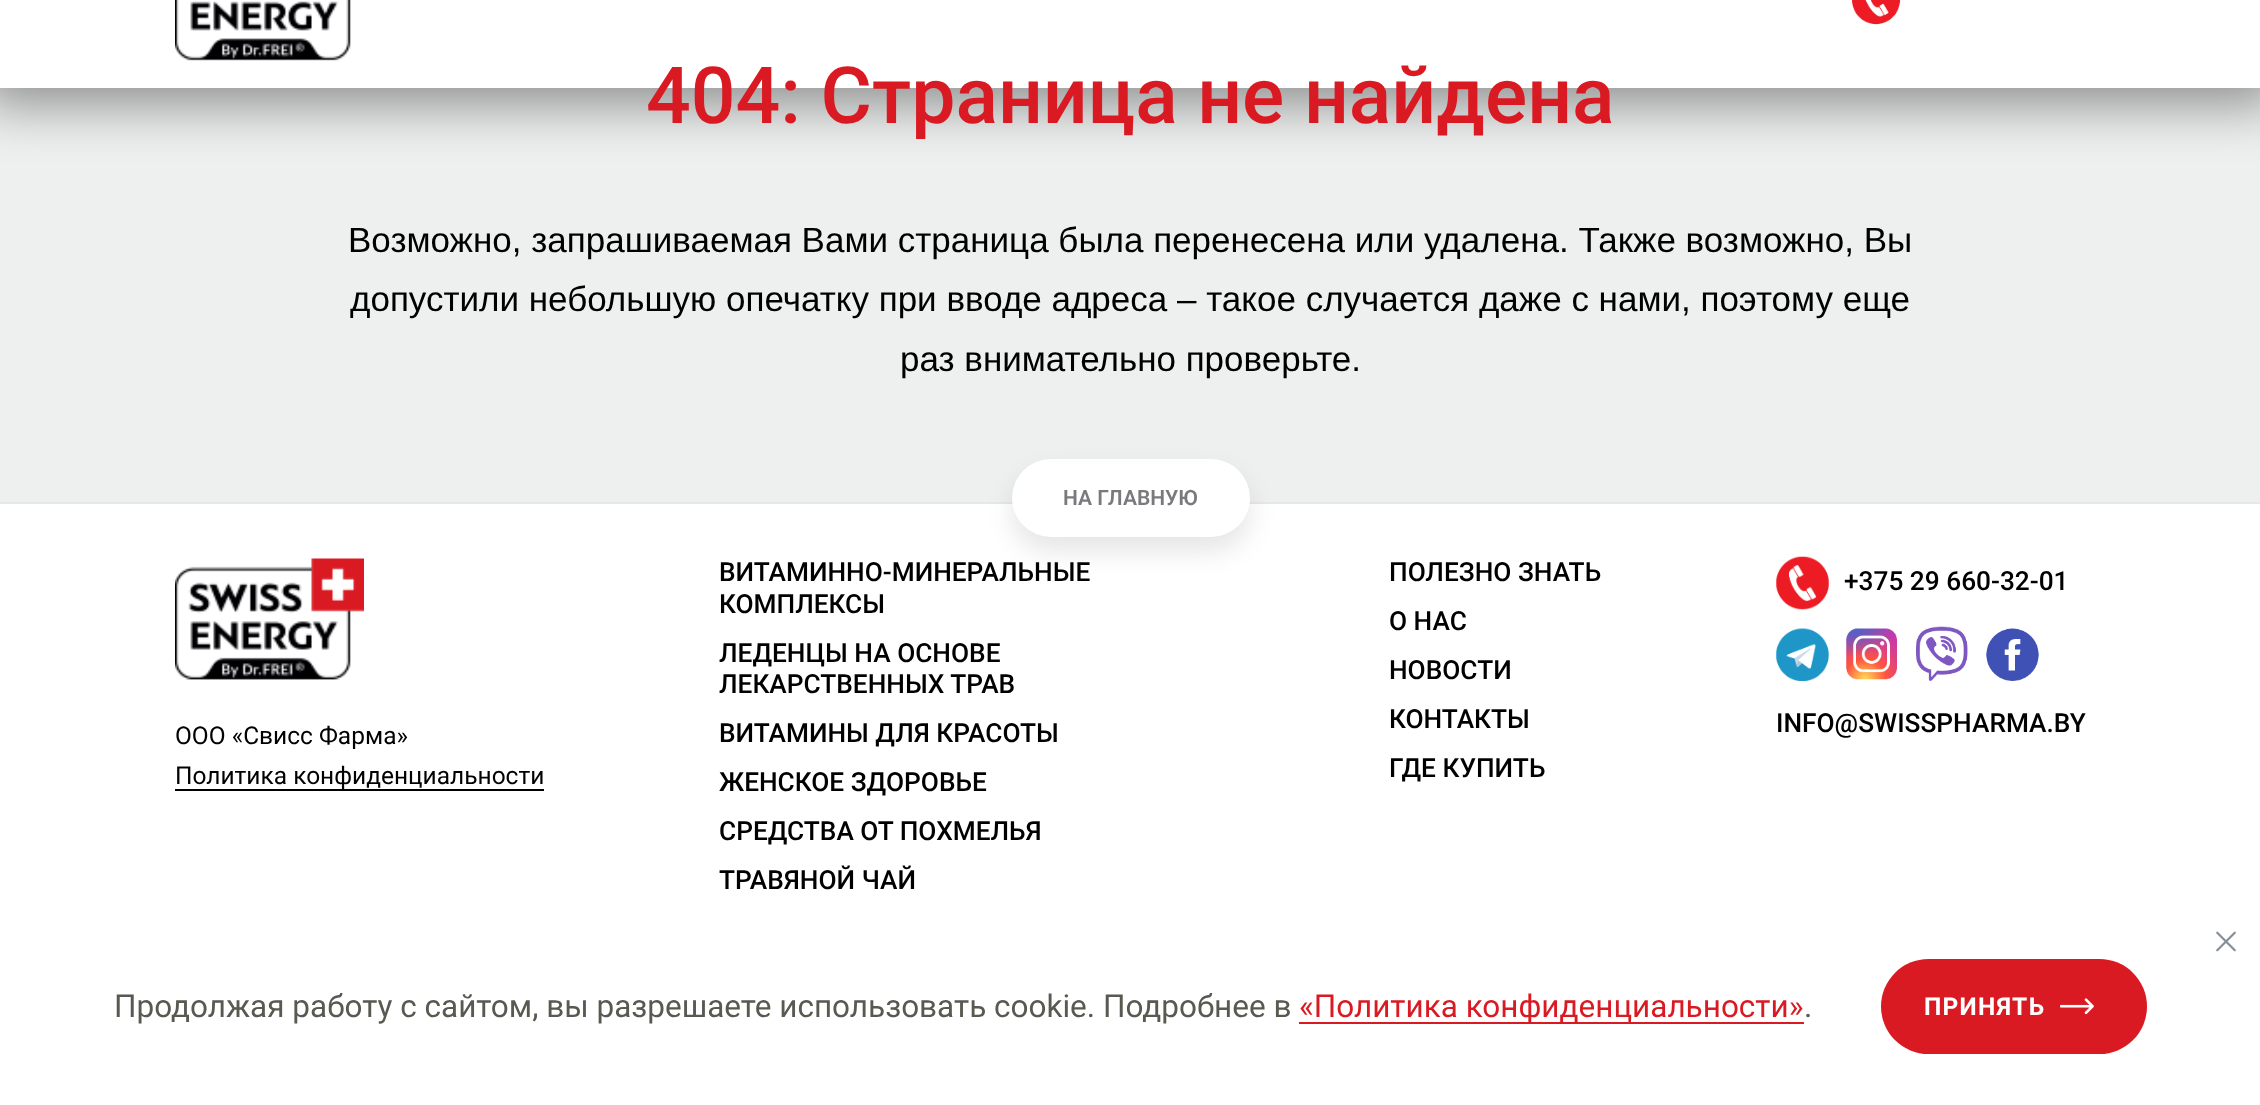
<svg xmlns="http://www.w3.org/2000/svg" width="2260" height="1105">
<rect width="100%" height="100%" fill="#eeefef"/>
<rect x="-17" y="-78" width="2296" height="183" fill="#00000066" filter="blur(26px)"/>
<rect width="2260" height="88" fill="#fff"/>
<image x="175" y="0" width="176" height="61" href="media/1.png"/>
<image x="1851" y="0" width="50" height="25" href="media/2.png"/>
<text x="646" y="123" style="font-family:Roboto;font-size:78.75px;font-weight:500;fill:#da1a22">404: Страница не найдена</text>
<text x="348" y="252" style="font-family:Liberation Sans;font-size:35px;fill:#000">Возможно, запрашиваемая Вами страница была перенесена или удалена. Также возможно, Вы</text>
<text x="350" y="311" style="font-family:Liberation Sans;font-size:35px;fill:#000">допустили небольшую опечатку при вводе адреса – такое случается даже с нами, поэтому еще</text>
<text x="900" y="371" style="font-family:Liberation Sans;font-size:35px;fill:#000">раз внимательно проверьте.</text>
<rect y="504" width="2260" height="601" fill="#fff"/>
<rect y="502" width="2260" height="2" fill="#e7e7e7"/>
<rect x="1012" y="473" width="238" height="78" rx="39" fill="#0000001a" filter="blur(13px)"/>
<rect x="1012" y="459" width="238" height="78" rx="39" fill="#fff"/>
<text x="1063" y="505" style="font-family:Roboto;font-size:21px;font-weight:600;fill:#797a7d">НА ГЛАВНУЮ</text>
<text x="719" y="581" style="font-family:Roboto;font-size:26.25px;font-weight:500;fill:#000">ВИТАМИННО-МИНЕРАЛЬНЫЕ</text>
<text x="719" y="613" style="font-family:Roboto;font-size:26.25px;font-weight:500;fill:#000">КОМПЛЕКСЫ</text>
<text x="719" y="662" style="font-family:Roboto;font-size:26.25px;font-weight:500;fill:#000">ЛЕДЕНЦЫ НА ОСНОВЕ</text>
<text x="719" y="693" style="font-family:Roboto;font-size:26.25px;font-weight:500;fill:#000">ЛЕКАРСТВЕННЫХ ТРАВ</text>
<text x="719" y="742" style="font-family:Roboto;font-size:26.25px;font-weight:500;fill:#000">ВИТАМИНЫ ДЛЯ КРАСОТЫ</text>
<text x="719" y="791" style="font-family:Roboto;font-size:26.25px;font-weight:500;fill:#000">ЖЕНСКОЕ ЗДОРОВЬЕ</text>
<text x="719" y="840" style="font-family:Roboto;font-size:26.25px;font-weight:500;fill:#000">СРЕДСТВА ОТ ПОХМЕЛЬЯ</text>
<text x="719" y="889" style="font-family:Roboto;font-size:26.25px;font-weight:500;fill:#000">ТРАВЯНОЙ ЧАЙ</text>
<text x="1389" y="581" style="font-family:Roboto;font-size:26.25px;font-weight:500;fill:#000">ПОЛЕЗНО ЗНАТЬ</text>
<text x="1389" y="630" style="font-family:Roboto;font-size:26.25px;font-weight:500;fill:#000">О НАС</text>
<text x="1389" y="679" style="font-family:Roboto;font-size:26.25px;font-weight:500;fill:#000">НОВОСТИ</text>
<text x="1389" y="728" style="font-family:Roboto;font-size:26.25px;font-weight:500;fill:#000">КОНТАКТЫ</text>
<text x="1389" y="777" style="font-family:Roboto;font-size:26.25px;font-weight:500;fill:#000">ГДЕ КУПИТЬ</text>
<image x="1776" y="556" width="53" height="54" href="media/3.png"/>
<text x="1844" y="590" style="font-family:Roboto;font-size:26.25px;font-weight:500;fill:#000">+375 29 660-32-01</text>
<image x="1776" y="628" width="53" height="53" href="media/4.png"/>
<image x="1846" y="628" width="51" height="52" href="media/5.png"/>
<image x="1916" y="626" width="52" height="55" href="media/6.png"/>
<image x="1986" y="628" width="53" height="53" href="media/7.png"/>
<text x="1776" y="732" style="font-family:Roboto;font-size:26.25px;font-weight:500;fill:#000">INFO@SWISSPHARMA.BY</text>
<image x="175" y="558" width="189" height="122" href="media/8.png"/>
<text x="175" y="744" style="font-family:Roboto;font-size:24.5px;fill:#000">ООО «Свисс Фарма»</text>
<text x="175" y="784" style="font-family:Roboto;font-size:24.5px;fill:#000">Политика конфиденциальности</text>
<rect x="175" y="789" width="369" height="2" fill="#000"/>
<image x="2216" y="931" width="20" height="21" href="media/9.png"/>
<text x="114" y="1017" style="font-family:Roboto;font-size:31.5px;fill:#595951">Продолжая работу с сайтом, вы разрешаете использовать cookie. Подробнее в</text>
<rect x="1299" y="1022" width="505" height="2" fill="#da1a22"/>
<text x="1299" y="1017" style="font-family:Roboto;font-size:31.5px;fill:#da1a22">«Политика конфиденциальности»</text>
<text x="1804" y="1017" style="font-family:Roboto;font-size:31.5px;fill:#595951">.</text>
<rect x="1881" y="959" width="266" height="95" rx="47.5" fill="#da1a22"/>
<text x="1924" y="1015" style="font-family:Roboto;font-size:24.5px;font-weight:bold;letter-spacing:1.25px;fill:#fff">ПРИНЯТЬ</text>
<image x="2060" y="998" width="34" height="17" href="media/10.png"/>
</svg>
